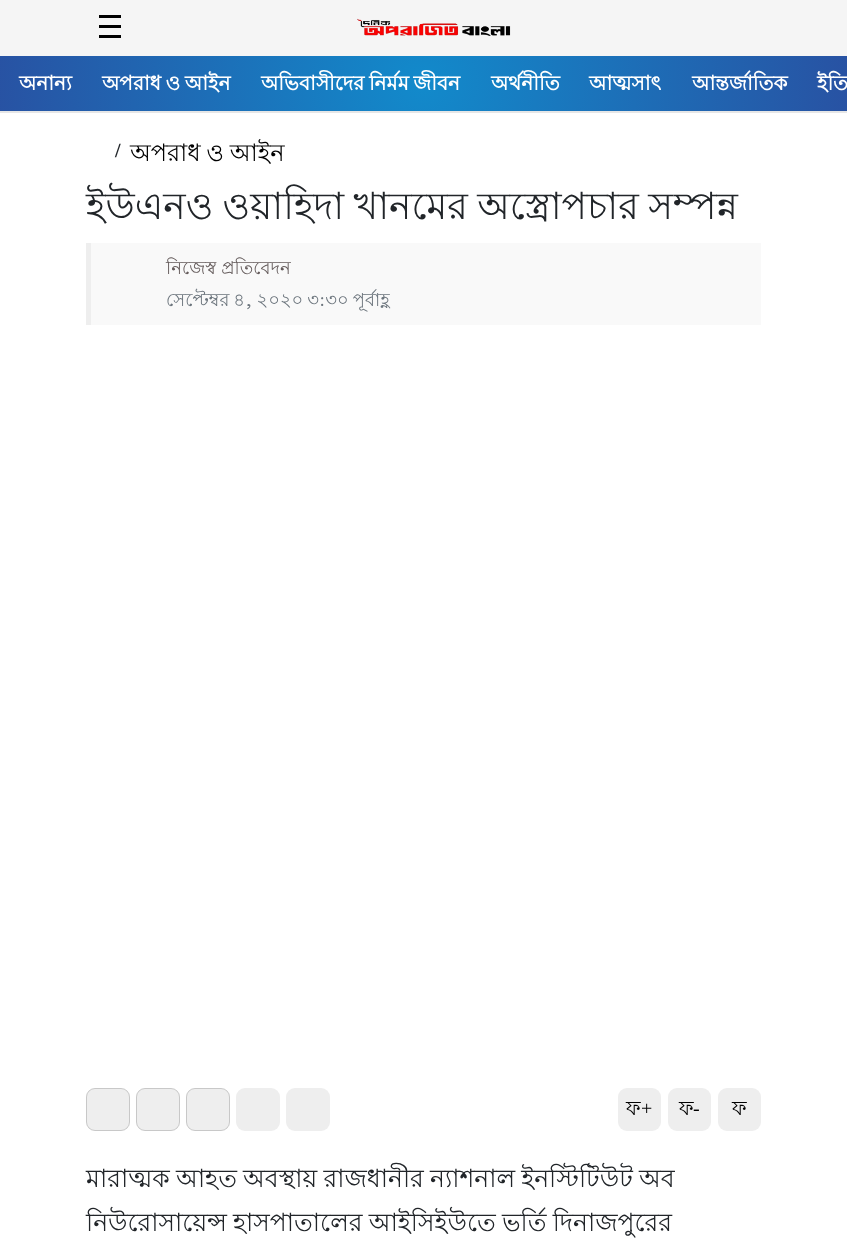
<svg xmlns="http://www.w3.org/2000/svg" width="847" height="1254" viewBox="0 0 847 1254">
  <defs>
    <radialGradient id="g1" gradientUnits="userSpaceOnUse" cx="422" cy="83" r="618"><stop offset="0" stop-color="#128acb"/><stop offset="1" stop-color="#323991"/></radialGradient>
  </defs>
  <rect width="100%" height="100%" fill="#fff"/>
  <path d="M0 0h847v56H0z" fill="#f5f5f5"/>
  <path d="M99 15h22v3H99z" fill="#000"/>
  <path d="M99 25h22v3H99z" fill="#000"/>
  <path d="M99 35h22v3H99z" fill="#000"/>
  <image x="357" y="18" width="154" height="18" href="img/1.png"/>
  <path d="M0 111V113H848V58V111Z" fill="#e6e6e6"/>
  <path d="M0 56h847v55H0z" fill="url(#g1)"/>
  <path d="M91 243h670v82H91z" fill="#f9f9f9"/>
  <path d="M86 243h5v82H86z" fill="#eee"/>
  <rect x="86" y="1088" width="44" height="43" rx="9" fill="#eee"/>
  <rect x="86.5" y="1088.5" width="43" height="42" rx="8.5" fill="none" stroke="#33333333"/>
  <rect x="136" y="1088" width="44" height="43" rx="9" fill="#eee"/>
  <rect x="136.5" y="1088.5" width="43" height="42" rx="8.5" fill="none" stroke="#33333333"/>
  <rect x="186" y="1088" width="44" height="43" rx="9" fill="#eee"/>
  <rect x="186.5" y="1088.5" width="43" height="42" rx="8.5" fill="none" stroke="#33333333"/>
  <rect x="236" y="1088" width="44" height="43" rx="9" fill="#eee"/>
  <rect x="286" y="1088" width="44" height="43" rx="9" fill="#eee"/>
  <rect x="618" y="1088" width="43" height="43" rx="9" fill="#eee"/>
  <rect x="668" y="1088" width="43" height="43" rx="9" fill="#eee"/>
  <rect x="718" y="1088" width="43" height="43" rx="9" fill="#eee"/>
  <g font-family="Lohit Bengali" font-size="20" font-weight="bold" fill="#fff">
    <text x="19" y="90">অনান্য</text>
    <text x="102" y="90" word-spacing="-1">অপরাধ ও আইন</text>
    <text x="261" y="90" word-spacing="-1">অভিবাসীদের নির্মম জীবন</text>
    <text x="491" y="90">অর্থনীতি</text>
    <text x="589" y="90">আত্মসাৎ</text>
    <text x="692" y="90">আন্তর্জাতিক</text>
    <text x="817" y="90">ইতি</text>
  </g>
  <text x="115" y="157" font-family="Liberation Serif" font-size="20" font-weight="bold" fill="#212529">/</text>
  <text x="130" y="161" word-spacing="-1" font-family="Lohit Bengali" font-size="24" fill="#000">অপরাধ ও আইন</text>
  <text x="86" y="219" word-spacing="-1" font-family="Lohit Bengali" font-size="37.5" fill="#212529">ইউএনও ওয়াহিদা খানমের অস্ত্রোপচার সম্পন্ন</text>
  <text x="166" y="274" font-family="Lohit Bengali" font-size="18" fill="#645b5b">নি‌জেস্ব প্র‌তি‌বেদন</text>
  <text x="166" y="306" word-spacing="-1" font-family="Lohit Bengali" font-size="18" fill="#6c757d">সেপ্টেম্বর ৪, ২০২০ ৩:৩০ পূর্বাহ্ণ</text>
  <text x="626" y="1115" font-family="Lohit Bengali" font-size="20" fill="#000">ফ</text>
  <text x="641" y="1115" font-family="Liberation Serif" font-size="20" fill="#000">+</text>
  <text x="679" y="1115" font-family="Lohit Bengali" font-size="20" fill="#000">ফ</text>
  <text x="693" y="1115" font-family="Liberation Serif" font-size="20" fill="#000">-</text>
  <text x="732" y="1115" font-family="Lohit Bengali" font-size="20" fill="#000">ফ</text>
  <g font-family="Lohit Bengali" font-size="25" fill="#212529">
    <text x="86" y="1187" word-spacing="-0.75">মারাত্মক আহত অবস্থায় রাজধানীর ন্যাশনাল ইনস্টিটিউট অব</text>
    <text x="86" y="1231" word-spacing="-0.75">নিউরোসায়েন্স হাসপাতালের আইসিইউতে ভর্তি দিনাজপুরের</text>
  </g>
</svg>
